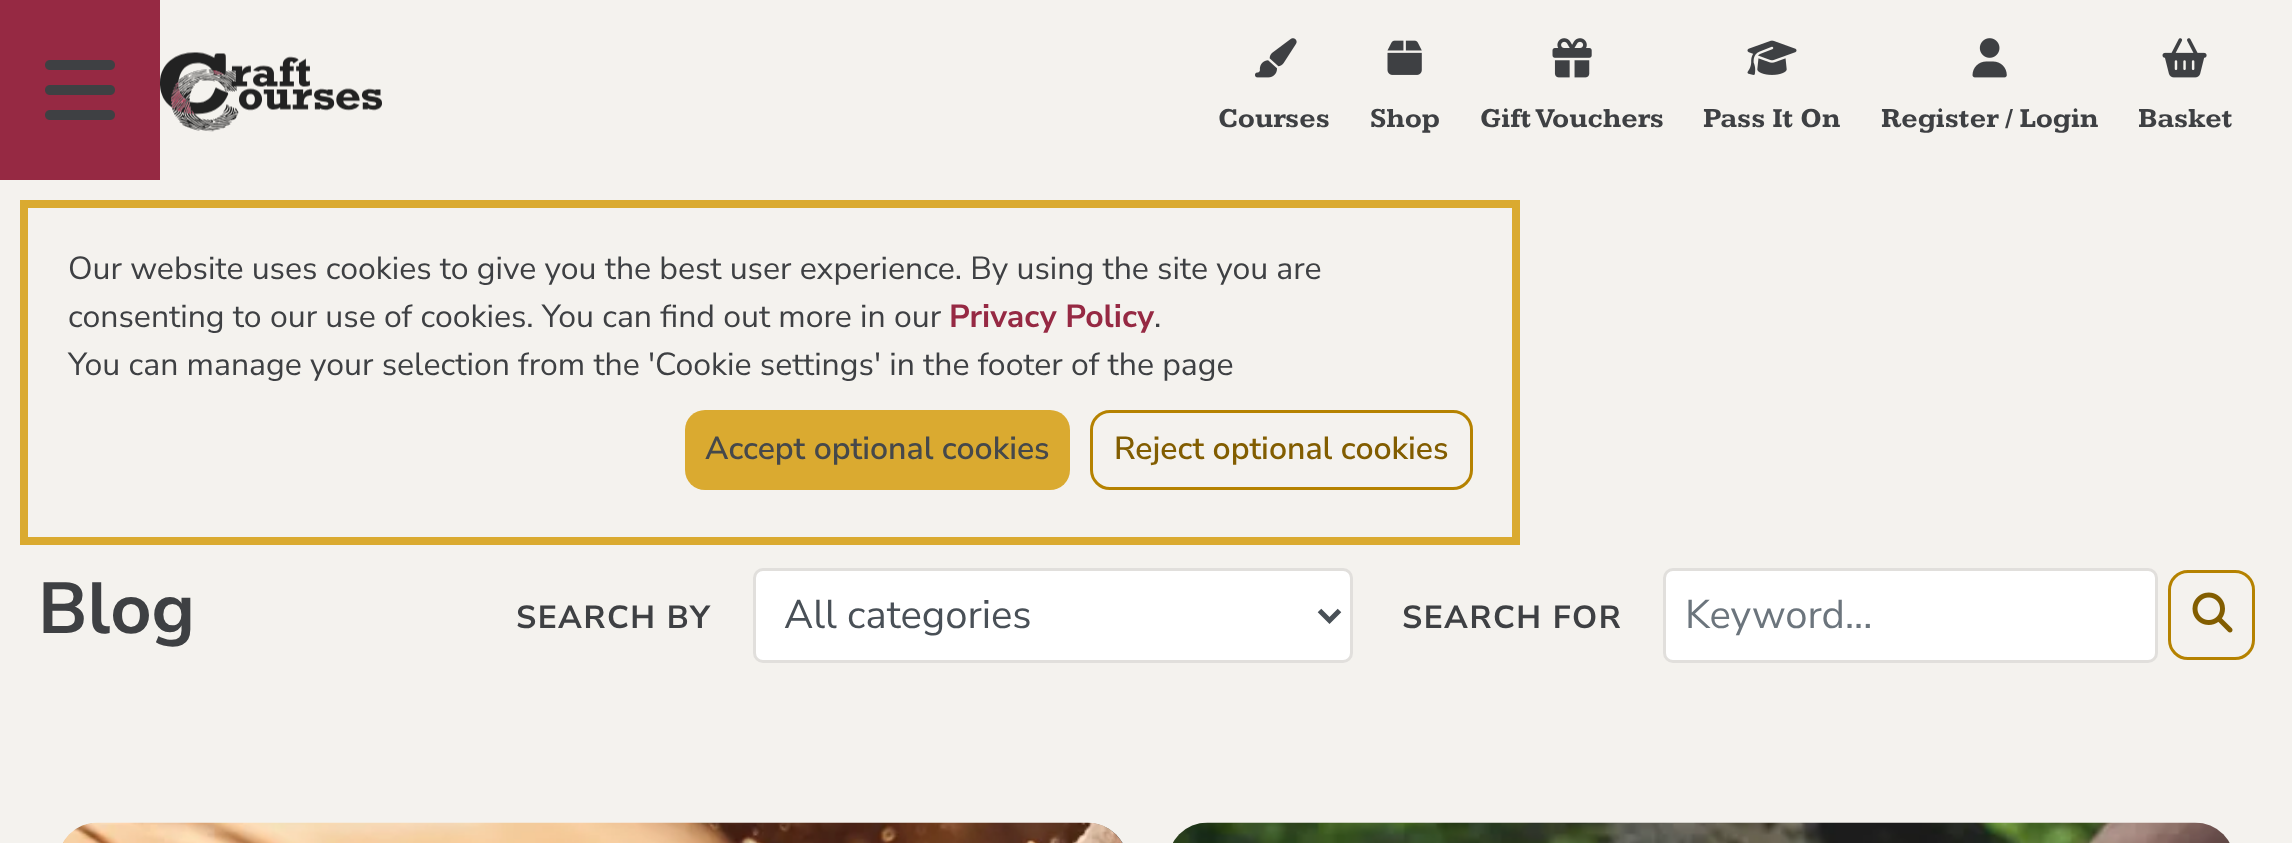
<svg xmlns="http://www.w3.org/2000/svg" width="2292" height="843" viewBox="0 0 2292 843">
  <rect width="100%" height="100%" fill="#fff"/>
  <path d="M19 -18h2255v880H19z" fill="none" stroke="#f4f2ee" stroke-width="38"/>
  <path d="M38 1h2217v842H38z" fill="#f4f2ee"/>
  <path d="M0 0h160v180H0z" fill="#962943"/>
  <image x="45" y="60" width="70" height="60" href="img/1.png"/>
  <image x="160" y="52" width="222" height="80" href="img/2.png"/>
  <image x="1255" y="38" width="42" height="40" href="img/3.png"/>
  <image x="1387" y="40" width="35" height="35" href="img/4.png"/>
  <image x="1552" y="38" width="40" height="40" href="img/5.png"/>
  <image x="1747" y="40" width="50" height="35" href="img/6.png"/>
  <image x="1972" y="38" width="35" height="40" href="img/7.png"/>
  <image x="2162" y="38" width="45" height="40" href="img/8.png"/>
  <path d="M24 204h1492v337H24z" fill="none" stroke="#daaa30" stroke-width="8"/>
  <rect x="685" y="410" width="385" height="80" rx="20" fill="#daaa30"/>
  <rect x="1091.5" y="411.5" width="380" height="77" rx="18.5" fill="none" stroke="#b58200" stroke-width="3"/>
  <rect x="754.5" y="569.5" width="597" height="92" rx="8.5" fill="#fff" stroke="#e1dfdc" stroke-width="3"/>
  <path d="M1319.5 610.5L1329.5 620.5L1339.5 610.5" fill="none" stroke="#495057" stroke-width="5"/>
  <rect x="1664.5" y="569.5" width="492" height="92" rx="8.5" fill="#fff" stroke="#e1dfdc" stroke-width="3"/>
  <rect x="2169.5" y="571.5" width="84" height="87" rx="18.5" fill="none" stroke="#b58200" stroke-width="3"/>
  <image x="2192" y="592" width="41" height="41" href="img/9.png"/>
  <path d="M98 823H1088C1110 823 1128 841 1128 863V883H58V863C58 841 76 823 98 823Z" fill="#3e4043"/>
  <image x="63" y="822" width="1059" height="21" href="img/10.png"/>
  <image x="1173" y="822" width="1057" height="21" href="img/11.png"/>
  <g font-family="Kameron" font-size="28" font-weight="bold" fill="#3e4043">
    <text x="1218" y="127">Courses</text>
    <text x="1370" y="127">Shop</text>
    <text x="1480" y="127">Gift Vouchers</text>
    <text x="1703" y="127">Pass It On</text>
    <text x="1881" y="127">Register / Login</text>
    <text x="2138" y="127">Basket</text>
  </g>
  <g font-family="'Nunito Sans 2'" font-size="32" font-weight="200" fill="#3e4043">
    <text x="68" y="279">Our website uses cookies to give you the best user experience. By using the site you are</text>
    <text x="68" y="327">consenting to our use of cookies. You can find out more in our</text>
  </g>
  <text x="949" y="327" font-family="Nunito Sans" font-size="32" font-weight="200" fill="#962943">Privacy Policy</text>
  <g font-family="'Nunito Sans 2'" font-size="32" font-weight="200" fill="#3e4043">
    <text x="1154" y="327">.</text>
    <text x="68" y="375">You can manage your selection from the 'Cookie settings' in the footer of the page</text>
  </g>
  <text x="705" y="459" font-family="'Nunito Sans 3'" font-size="32" font-weight="200" fill="#45484b">Accept optional cookies</text>
  <text x="1114" y="459" font-family="'Nunito Sans 3'" font-size="32" font-weight="200" fill="#825d00">Reject optional cookies</text>
  <text x="38" y="633" font-family="Nunito Sans" font-size="72" font-weight="200" fill="#3e4043">Blog</text>
  <text x="516" y="628" font-family="Nunito Sans" font-size="32" font-weight="200" letter-spacing="1.6" fill="#3e4043">SEARCH BY</text>
  <text x="784" y="628" font-family="'Nunito Sans 2'" font-size="40" font-weight="200" fill="#495057">All categories</text>
  <text x="1402" y="628" font-family="Nunito Sans" font-size="32" font-weight="200" letter-spacing="1.6" fill="#3e4043">SEARCH FOR</text>
  <text x="1685" y="628" font-family="'Nunito Sans 2'" font-size="40" font-weight="200" fill="#6c757d">Keyword...</text>
</svg>
